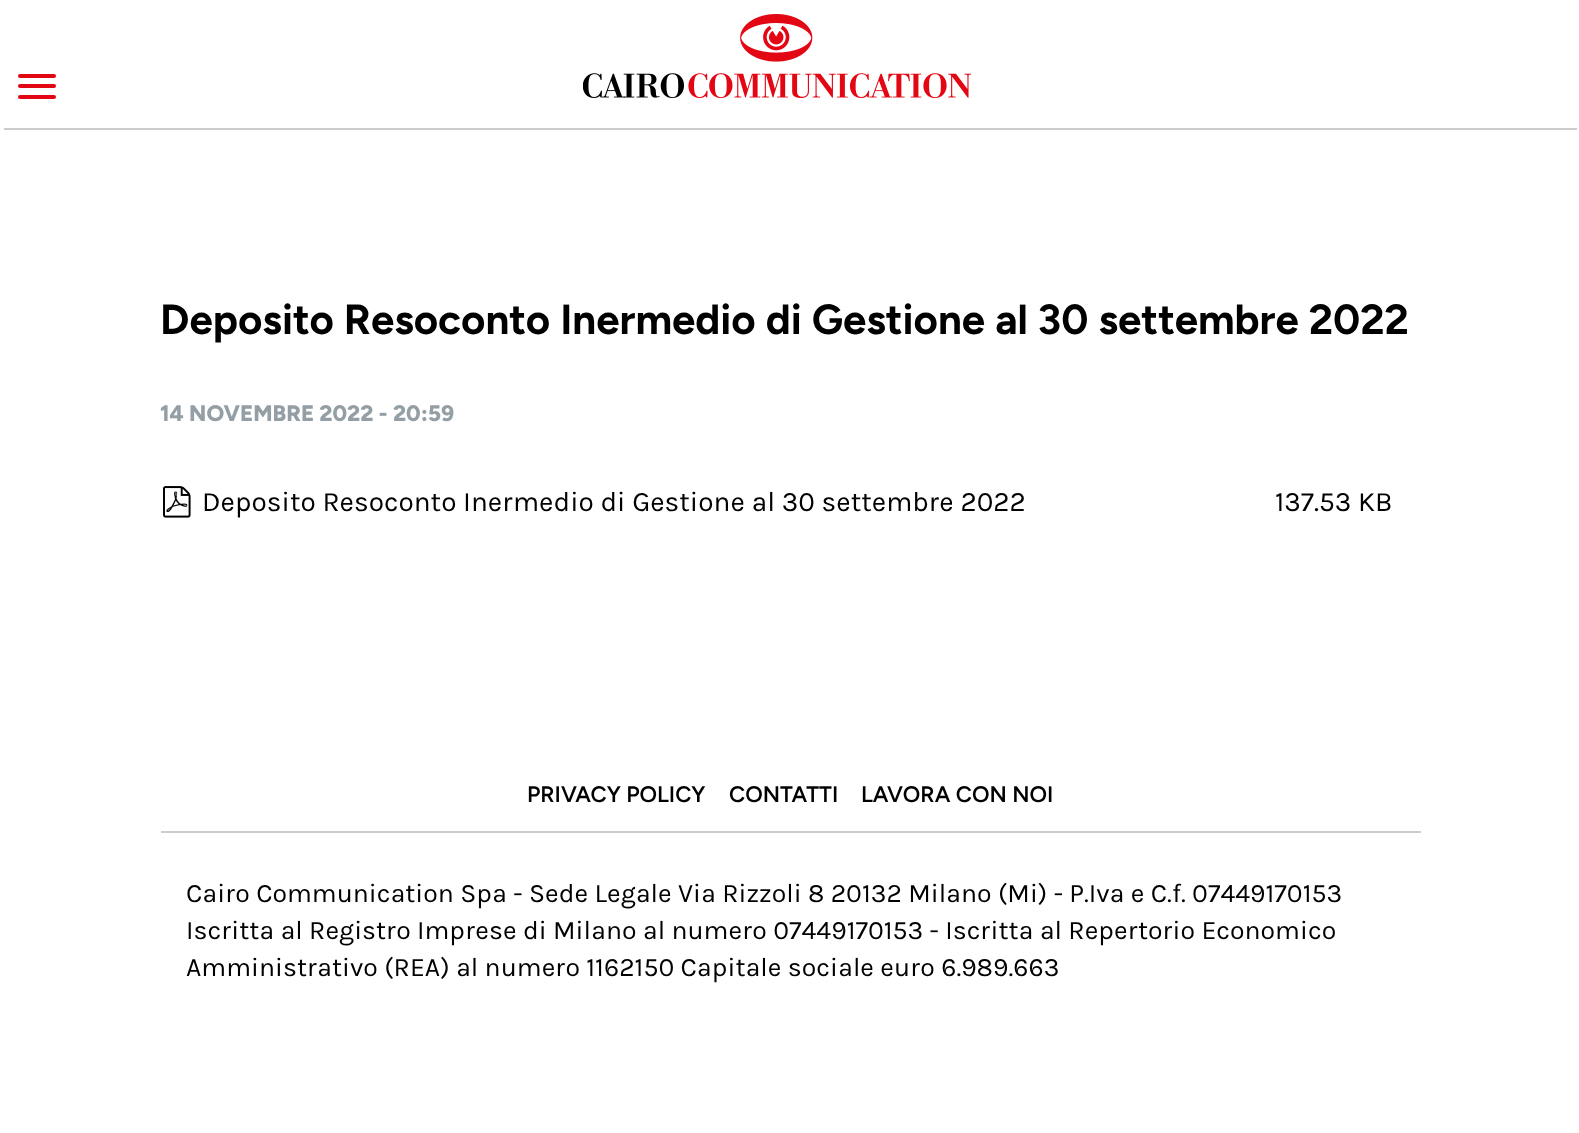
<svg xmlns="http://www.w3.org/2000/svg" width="1579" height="1133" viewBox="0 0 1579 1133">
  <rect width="100%" height="100%" fill="#fff"/>
  <path d="M4 128h1573v2H4z" fill="#ccc"/>
  <rect x="18" y="74" width="38" height="4" rx="2" fill="#e30613"/>
  <rect x="18" y="84" width="38" height="4" rx="2" fill="#e30613"/>
  <rect x="18" y="95" width="38" height="4" rx="2" fill="#e30613"/>
  <image x="583" y="14" width="388" height="84" href="img/1.png"/>
  <image x="163" y="486" width="28" height="32" href="img/2.png"/>
  <path d="M161 831h1260v2H161z" fill="#ccc"/>
  <text x="160" y="334" font-family="Figtree" font-size="42" font-weight="bold" fill="#000">Deposito Resoconto Inermedio di Gestione al 30 settembre 2022</text>
  <text x="160" y="421" font-family="Figtree" font-size="22.4" font-weight="800" fill="#949fa5">14 NOVEMBRE 2022 - 20:59</text>
  <g font-family="Karla" font-size="28" fill="#000">
    <text x="202" y="511">Deposito Resoconto Inermedio di Gestione al 30 settembre 2022</text>
    <text x="1275" y="511">137.53 KB</text>
  </g>
  <g font-family="Figtree" font-size="22.4" font-weight="600" fill="#000">
    <text x="527" y="802">PRIVACY POLICY</text>
    <text x="729" y="802">CONTATTI</text>
    <text x="861" y="802">LAVORA CON NOI</text>
  </g>
  <g font-family="Karla" font-size="26.6" fill="#000">
    <text x="186" y="902">Cairo Communication Spa - Sede Legale Via Rizzoli 8 20132 Milano (Mi) - P.Iva e C.f. 07449170153</text>
    <text x="186" y="939">Iscritta al Registro Imprese di Milano al numero 07449170153 - Iscritta al Repertorio Economico</text>
    <text x="186" y="976">Amministrativo (REA) al numero 1162150 Capitale sociale euro 6.989.663</text>
  </g>
</svg>
